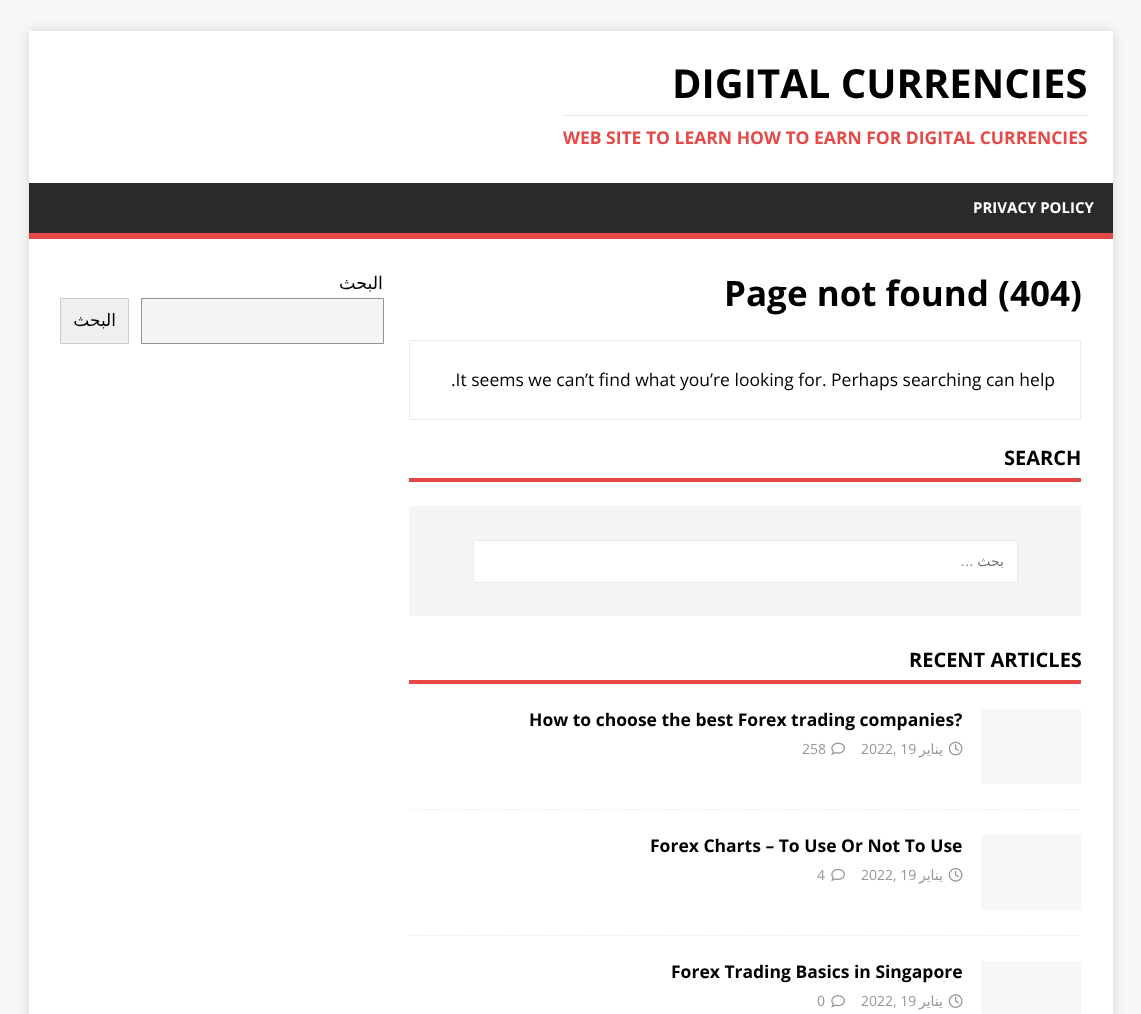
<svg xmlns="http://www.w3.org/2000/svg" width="1141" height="1014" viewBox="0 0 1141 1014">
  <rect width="100%" height="100%" fill="#f7f7f7"/>
  <path d="M29 31h1084v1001H29z" fill="#3232322b" filter="blur(6px)"/>
  <path d="M29 31h1084v152H29z" fill="#fff"/>
  <path d="M563 115h525v1H563z" fill="#e5e5e5"/>
  <path d="M29 183h1084v50H29z" fill="#2a2a2a"/>
  <path d="M29 233h1084v6H29z" fill="#e64946"/>
  <path d="M29 239h1084v775H29z" fill="#fff"/>
  <path d="M60.5 298.5h68v45H60.5z" fill="#efefef" stroke="#ccc"/>
  <path d="M141.5 298.5h242v45H141.5z" fill="#f5f5f5" stroke="#949494"/>
  <path d="M409.5 340.5h671v79H409.5z" fill="none" stroke="#ebebeb"/>
  <path d="M409 478h672v4H409z" fill="#e64946"/>
  <path d="M409 506h672v110H409z" fill="#f5f5f5"/>
  <path d="M473.5 540.5h544v42H473.5z" fill="#fff" stroke="#ebebeb"/>
  <path d="M409 680h672v4H409z" fill="#e64946"/>
  <path d="M409 809.5H1081" fill="none" stroke="#ebebeb" stroke-width="1.2" stroke-dasharray="1.25 1.25"/>
  <image x="831" y="742" width="14" height="13" href="img/1.png"/>
  <image x="948" y="741" width="15" height="15" href="img/2.png"/>
  <path d="M981 709h100v75H981z" fill="#f7f7f7"/>
  <path d="M409 935.5H1081" fill="none" stroke="#ebebeb" stroke-width="1.2" stroke-dasharray="1.25 1.25"/>
  <image x="831" y="868" width="14" height="13" href="img/3.png"/>
  <image x="948" y="868" width="15" height="14" href="img/4.png"/>
  <path d="M981 835h100v75H981z" fill="#f7f7f7"/>
  <image x="831" y="995" width="14" height="13" href="img/5.png"/>
  <image x="948" y="994" width="15" height="14" href="img/6.png"/>
  <path d="M981 961h100v53H981z" fill="#f7f7f7"/>
  <text x="672" y="98" font-family="Open Sans" font-size="40" font-weight="bold" fill="#000">DIGITAL CURRENCIES</text>
  <text x="563" y="144" font-family="Open Sans" font-size="17.5" font-weight="bold" fill="#e64946">WEB SITE TO LEARN HOW TO EARN FOR DIGITAL CURRENCIES</text>
  <text x="973" y="213" font-family="Open Sans" font-size="15" font-weight="bold" fill="#fff">PRIVACY POLICY</text>
  <text x="383" y="289" font-family="DejaVu Sans" font-size="17.5" direction="rtl" fill="#000">البحث</text>
  <text x="116" y="326" font-family="DejaVu Sans" font-size="17" direction="rtl" fill="#000">البحث</text>
  <text x="724" y="306" font-family="Open Sans" font-size="35" font-weight="bold" fill="#000">Page not found (404)</text>
  <text x="451" y="386" font-family="Open Sans" font-size="17.5" fill="#000">.It seems we can’t find what you’re looking for. Perhaps searching can help</text>
  <text x="1004" y="465" font-family="Open Sans" font-size="20" font-weight="bold" fill="#000">SEARCH</text>
  <text x="974" y="566" font-family="Liberation Sans" font-size="14" direction="rtl" fill="#757575">…</text>
  <text x="1004" y="566" font-family="DejaVu Sans" font-size="14" direction="rtl" fill="#757575">بحث</text>
  <text x="909" y="667" font-family="Open Sans" font-size="20" font-weight="bold" fill="#000">RECENT ARTICLES</text>
  <text x="529" y="726" font-family="Open Sans" font-size="17.5" font-weight="bold" fill="#000">How to choose the best Forex trading companies?</text>
  <g font-family="Open Sans" font-size="14" fill="#979797">
    <text x="802" y="754">258</text>
    <text x="861" y="754">2022, 19</text>
  </g>
  <text x="943" y="754" font-family="DejaVu Sans" font-size="14" direction="rtl" fill="#979797">يناير</text>
  <text x="650" y="852" font-family="Open Sans" font-size="17.5" font-weight="bold" fill="#000">Forex Charts – To Use Or Not To Use</text>
  <g font-family="Open Sans" font-size="14" fill="#979797">
    <text x="817" y="880">4</text>
    <text x="861" y="880">2022, 19</text>
  </g>
  <text x="943" y="880" font-family="DejaVu Sans" font-size="14" direction="rtl" fill="#979797">يناير</text>
  <text x="671" y="978" font-family="Open Sans" font-size="17.5" font-weight="bold" fill="#000">Forex Trading Basics in Singapore</text>
  <g font-family="Open Sans" font-size="14" fill="#979797">
    <text x="817" y="1006">0</text>
    <text x="861" y="1006">2022, 19</text>
  </g>
  <text x="943" y="1006" font-family="DejaVu Sans" font-size="14" direction="rtl" fill="#979797">يناير</text>
</svg>
